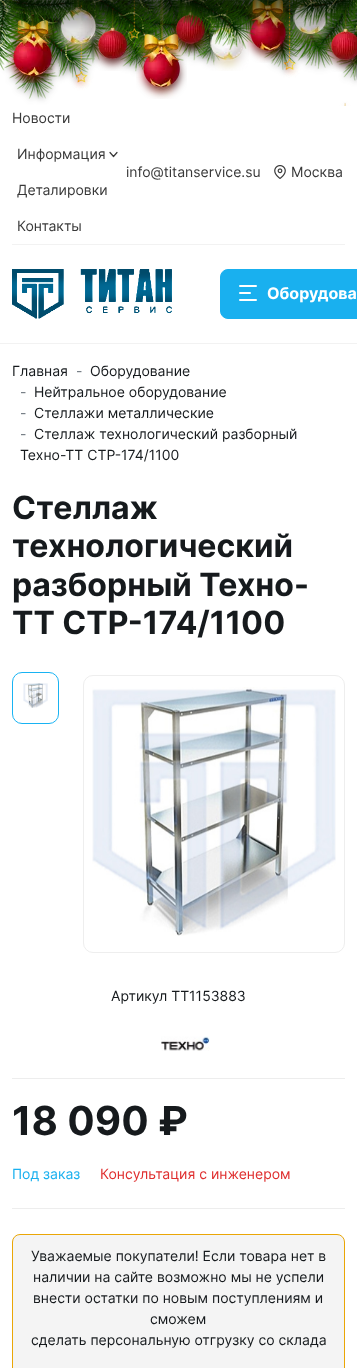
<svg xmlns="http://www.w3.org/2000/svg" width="357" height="1368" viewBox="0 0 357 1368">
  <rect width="100%" height="100%" fill="#fff"/>
  <image x="0" y="0" width="357" height="106" href="img/1.png"/>
  <image x="6" y="5" width="53" height="78" href="img/10.png"/>
  <image x="0" y="0" width="25" height="71" href="img/2.png"/>
  <image x="54" y="0" width="48" height="51" href="img/4.png"/>
  <image x="25" y="0" width="61" height="27" href="img/3.png"/>
  <image x="136" y="0" width="51" height="99" href="img/5.png"/>
  <image x="169" y="2" width="42" height="54" href="img/12.png"/>
  <image x="204" y="6" width="45" height="65" href="img/13.png"/>
  <image x="177" y="0" width="28" height="31" href="img/6.png"/>
  <image x="243" y="0" width="49" height="63" href="img/8.png"/>
  <image x="205" y="0" width="50" height="50" href="img/7.png"/>
  <image x="287" y="0" width="46" height="45" href="img/9.png"/>
  <image x="92" y="9" width="41" height="62" href="img/11.png"/>
  <image x="325" y="10" width="32" height="62" href="img/15.png"/>
  <image x="289" y="0" width="68" height="28" href="img/14.png"/>
  <path d="M0 -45h357v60H0z" fill="#000000bf" filter="blur(15px)"/>
  <path d="M0 343h357v1H0z" fill="#f2f2f2"/>
  <path d="M12 244h333v1H12z" fill="#f2f2f2"/>
  <path d="M110 152.5L113.5 156.5L117 152.5" fill="none" stroke="#393939" stroke-width="1.2" stroke-linecap="round" stroke-linejoin="round"/>
  <image x="274" y="165" width="12" height="14" href="img/16.png"/>
  <image x="12" y="269" width="160" height="50" href="img/17.png"/>
  <rect x="220.5" y="269.5" width="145" height="49" rx="7.5" fill="#19b0ef" stroke="#19b0ef"/>
  <rect x="239" y="285" width="18" height="2" rx="1" fill="#fff"/>
  <rect x="239" y="292" width="12" height="2" rx="1" fill="#fff"/>
  <rect x="239" y="299" width="18" height="2" rx="1" fill="#fff"/>
  <rect x="12.5" y="672.5" width="46" height="51" rx="9.5" fill="none" stroke="#18b3f3"/>
  <image x="23" y="683" width="25" height="25" href="img/18.png"/>
  <rect x="83.5" y="675.5" width="261" height="277" rx="9.5" fill="none" stroke="#eee"/>
  <image x="92" y="687" width="244" height="249" href="img/19.png"/>
  <path d="M12 1078h333v1H12z" fill="#ededed"/>
  <image x="161" y="1036" width="49" height="15" href="img/20.png"/>
  <path d="M12 1208h333v1H12z" fill="#ededed"/>
  <rect x="12.5" y="1234.5" width="332" height="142" rx="7.5" fill="#f4f4f4" stroke="#eaa606"/>
  <g font-family="Inter" font-size="14" fill="#393939">
    <text x="12" y="123">Новости</text>
    <text x="17" y="159">Информация</text>
    <text x="17" y="195">Деталировки</text>
    <text x="17" y="231">Контакты</text>
    <text x="126" y="177">info@titanservice.su</text>
    <text x="291" y="177">Москва</text>
  </g>
  <text x="267" y="299" font-family="Inter" font-size="16" font-weight="bold" fill="#fff">Оборудова</text>
  <text x="12" y="376" font-family="Inter" font-size="14" fill="#161a1d">Главная</text>
  <text x="76" y="376" font-family="Inter" font-size="14" fill="#6c757d">-</text>
  <text x="90" y="376" font-family="Inter" font-size="14" fill="#161a1d">Оборудование</text>
  <text x="20" y="397" font-family="Inter" font-size="14" fill="#6c757d">-</text>
  <text x="34" y="397" font-family="Inter" font-size="14" fill="#161a1d">Нейтральное оборудование</text>
  <text x="20" y="418" font-family="Inter" font-size="14" fill="#6c757d">-</text>
  <text x="34" y="418" font-family="Inter" font-size="14" fill="#161a1d">Стеллажи металлические</text>
  <text x="20" y="439" font-family="Inter" font-size="14" fill="#6c757d">-</text>
  <g font-family="Inter" font-size="14" fill="#161a1d">
    <text x="34" y="439">Стеллаж технологический разборный</text>
    <text x="20" y="460">Техно-ТТ СТР-174/1100</text>
  </g>
  <g font-family="Inter" font-size="32" font-weight="bold" fill="#161a1d">
    <text x="12" y="519">Стеллаж</text>
    <text x="12" y="557">технологический</text>
    <text x="12" y="596">разборный Техно-</text>
    <text x="12" y="634">ТТ СТР-174/1100</text>
  </g>
  <text x="111" y="1001" font-family="Inter" font-size="14" fill="#161a1d">Артикул ТТ1153883</text>
  <text x="12" y="1135" font-family="Inter" font-size="40" font-weight="bold" fill="#161a1d">18 090 ₽</text>
  <text x="12" y="1179" font-family="Inter" font-size="14" fill="#19b0ef">Под заказ</text>
  <text x="100" y="1179" font-family="Inter" font-size="14" fill="#df2e2e">Консультация с инженером</text>
  <g font-family="Inter" font-size="14" fill="#161a1d">
    <text x="31" y="1261">Уважаемые покупатели! Если товара нет в</text>
    <text x="33" y="1282">наличии на сайте возможно мы не успели</text>
    <text x="33" y="1303">внести остатки по новым поступлениям и</text>
    <text x="150" y="1324">сможем</text>
    <text x="31" y="1345">сделать персональную отгрузку со склада</text>
  </g>
</svg>
